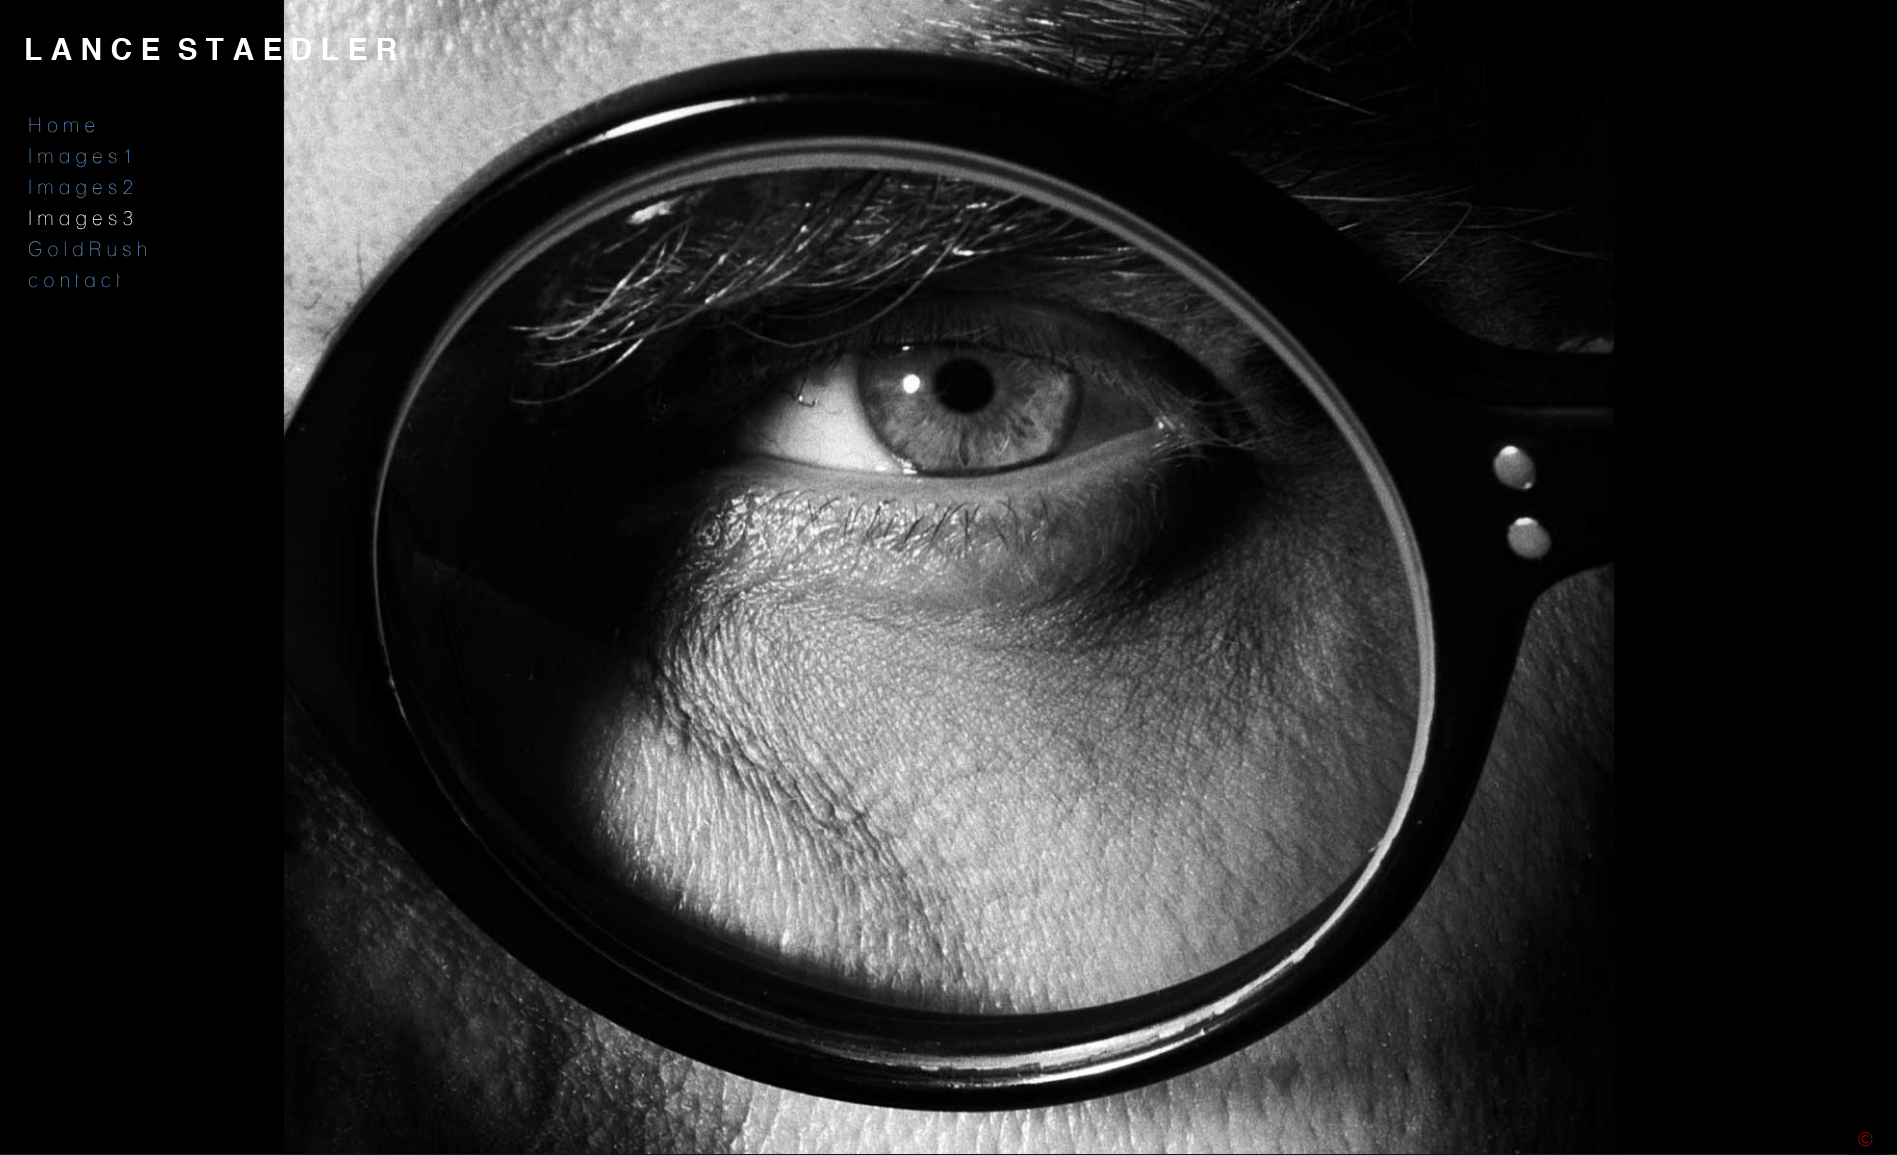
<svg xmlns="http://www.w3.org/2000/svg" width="1897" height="1155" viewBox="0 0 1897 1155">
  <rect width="100%" height="100%" fill="#000"/>
  <image x="280" y="0" width="1337" height="1154" href="img/1.png"/>
  <path d="M0 1154h1897v1H0z" fill="#161516"/>
  <image x="26" y="38" width="370" height="22" href="img/2.png"/>
  <path d="M1849 1154h33v1H1849z" fill="#000"/>
  <g font-family="'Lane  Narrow'" font-size="20" fill="#69c">
    <text x="28" y="132">H o m e</text>
    <text x="28" y="163">I m a g e s 1</text>
    <text x="28" y="194">I m a g e s 2</text>
  </g>
  <text x="28" y="225" font-family="'Lane  Narrow'" font-size="20" fill="#fff">I m a g e s 3</text>
  <g font-family="'Lane  Narrow'" font-size="20" fill="#69c">
    <text x="28" y="256">G o l d R u s h</text>
    <text x="28" y="287">c o n t a c t</text>
  </g>
  <text x="1858" y="1146" font-family="Liberation Sans" font-size="20" fill="#900">©</text>
</svg>
